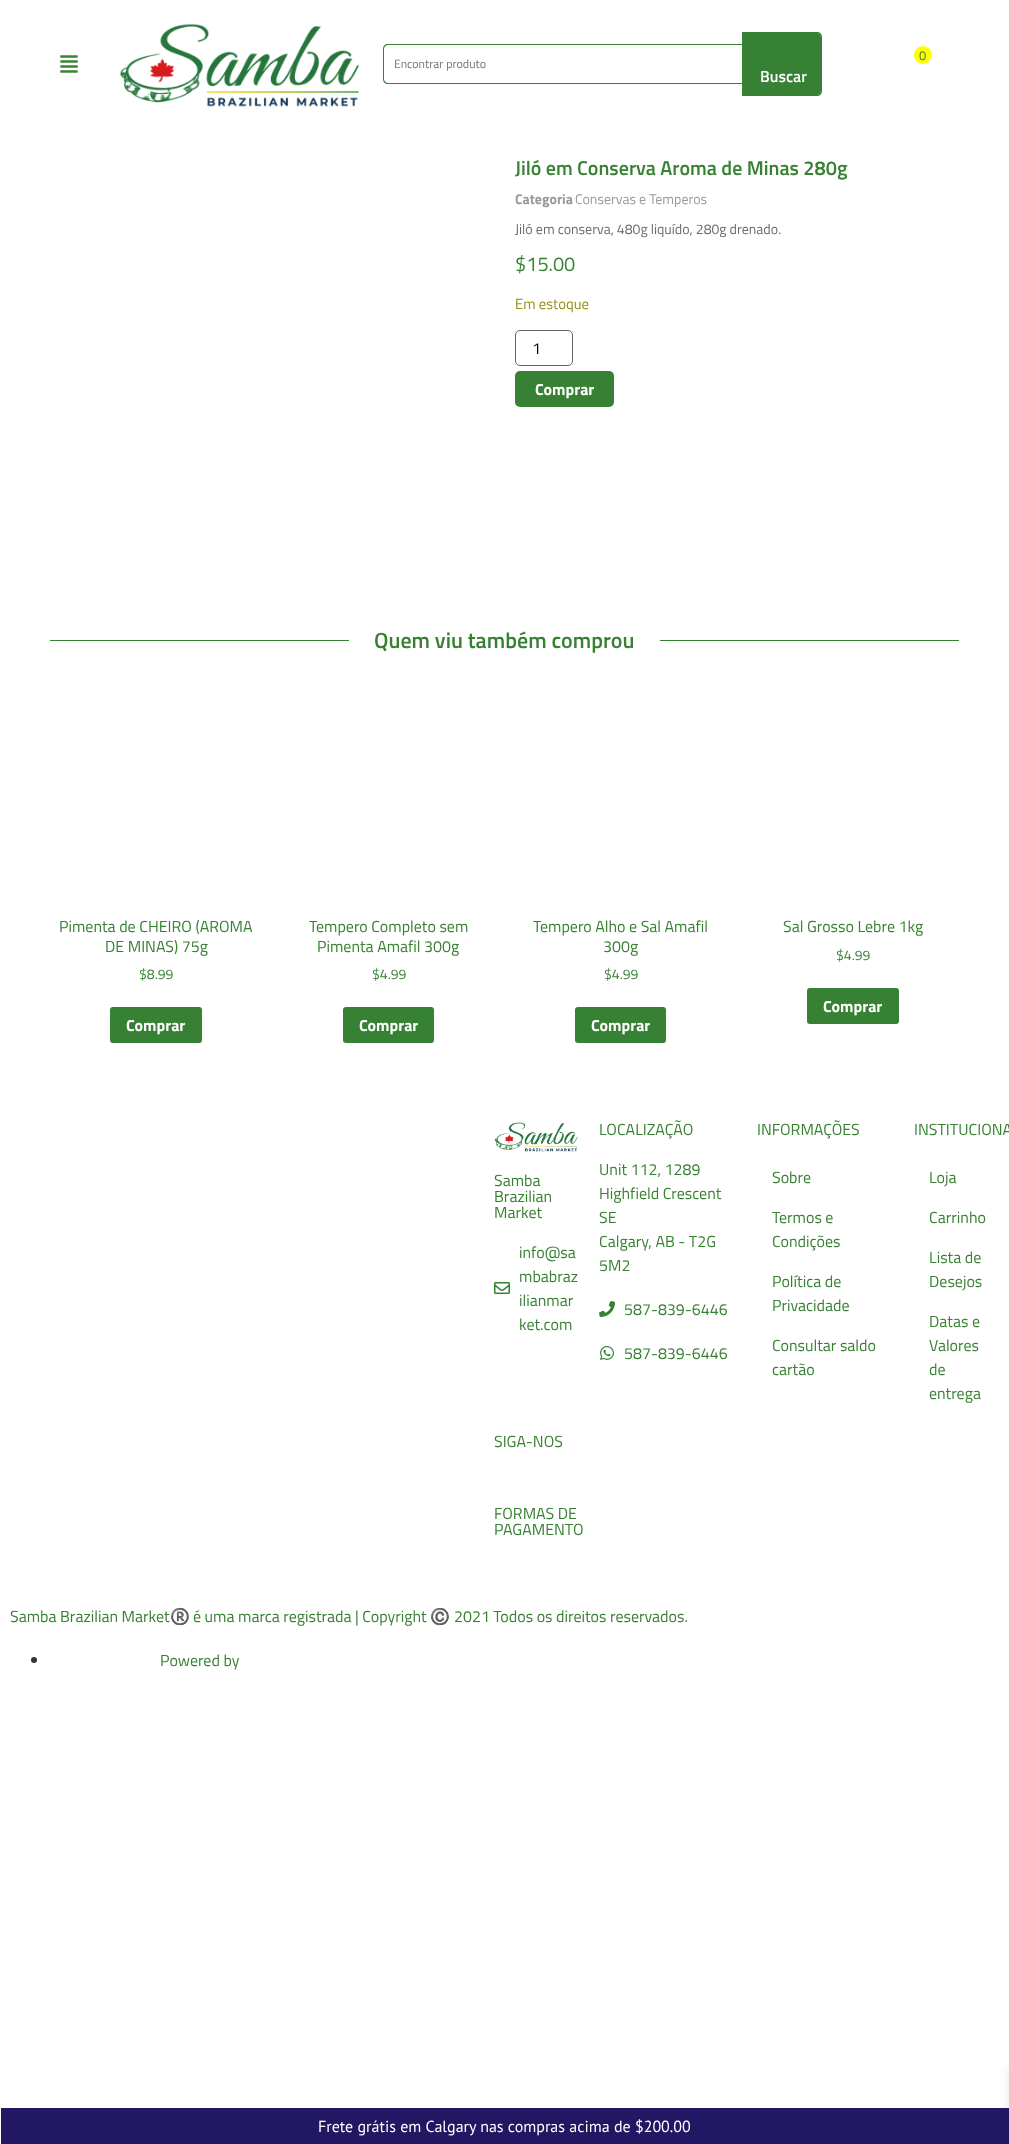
<svg xmlns="http://www.w3.org/2000/svg" width="1009" height="2144" viewBox="0 0 1009 2144">
  <rect width="100%" height="100%" fill="#fff"/>
  <image x="60" y="55" width="18" height="18" href="img/1.png"/>
  <image x="119" y="23" width="240" height="84" href="img/2.png"/>
  <path d="M388 44H744V84H388C385 84 383 82 383 79V49C383 46 385 44 388 44ZM388 45H744V83H388C386 83 384 81 384 79V49C384 47 386 45 388 45Z" fill="#378134" fill-rule="evenodd"/>
  <path d="M742 33H817C819 33 821 35 821 37V91C821 93 819 95 817 95H742Z" fill="#378134"/>
  <path d="M742 32H817C820 32 822 34 822 37V91C822 94 820 96 817 96H742ZM742 33H817C819 33 821 35 821 37V91C821 93 819 95 817 95H742Z" fill="#378134" fill-rule="evenodd"/>
  <circle cx="923" cy="55" r="9" fill="#ff0"/>
  <rect x="515.5" y="330.5" width="57" height="35" rx="4.5" fill="none" stroke="#666"/>
  <rect x="515" y="371" width="99" height="36" rx="5" fill="#378134"/>
  <path d="M50 640h299v1H50z" fill="#378134"/>
  <path d="M660 640h299v1H660z" fill="#378134"/>
  <rect x="110" y="1007" width="92" height="36" rx="3" fill="#378134"/>
  <rect x="343" y="1007" width="91" height="36" rx="3" fill="#378134"/>
  <rect x="575" y="1007" width="91" height="36" rx="3" fill="#378134"/>
  <rect x="807" y="988" width="92" height="36" rx="3" fill="#378134"/>
  <image x="494" y="1122" width="84" height="30" href="img/3.png"/>
  <image x="494" y="1282" width="16" height="12" href="img/4.png"/>
  <image x="599" y="1301" width="16" height="16" href="img/5.png"/>
  <image x="600" y="1346" width="14" height="14" href="img/6.png"/>
  <circle cx="34" cy="1660" r="3" fill="#333"/>
  <path d="M1009 2068h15v71H1009z" fill="#0000001a" filter="blur(5px)"/>
  <path d="M1 2108h1008v36H1z" fill="#221762"/>
  <text x="394" y="68" font-family="Titillium Web" font-size="12" fill="#757575">Encontrar produto</text>
  <text x="760" y="82" font-family="Titillium Web" font-size="16" font-weight="600" fill="#fff">Buscar</text>
  <text x="919" y="60" font-family="Titillium Web" font-size="13" fill="#388133">0</text>
  <text x="515" y="175" font-family="Titillium Web" font-size="20" font-weight="600" fill="#388133">Jiló em Conserva Aroma de Minas 280g</text>
  <text x="515" y="204" font-family="Titillium Web" font-size="14" font-weight="bold" fill="#999">Categoria</text>
  <text x="575" y="204" font-family="Titillium Web" font-size="14" fill="#999">Conservas e Temperos</text>
  <text x="515" y="234" font-family="Titillium Web" font-size="14" fill="#6b6b6b">Jiló em conserva, 480g liquído, 280g drenado.</text>
  <text x="515" y="271" font-family="Titillium Web" font-size="20" fill="#388133">$15.00</text>
  <text x="515" y="309" font-family="Titillium Web" font-size="14.75" fill="#958e09">Em estoque</text>
  <text x="532" y="354" font-family="Titillium Web" font-size="16" fill="#000">1</text>
  <text x="535" y="395" font-family="Titillium Web" font-size="16" font-weight="bold" fill="#fff">Comprar</text>
  <text x="374" y="648" font-family="Titillium Web" font-size="22" font-weight="600" fill="#388133">Quem viu também comprou</text>
  <g font-family="Titillium Web" font-size="16" fill="#388133">
    <text x="59" y="932">Pimenta de CHEIRO (AROMA</text>
    <text x="105" y="952">DE MINAS) 75g</text>
  </g>
  <text x="139" y="979" font-family="Titillium Web" font-size="14" fill="#388133">$8.99</text>
  <text x="126" y="1031" font-family="Titillium Web" font-size="16" font-weight="bold" fill="#fff">Comprar</text>
  <g font-family="Titillium Web" font-size="16" fill="#388133">
    <text x="309" y="932">Tempero Completo sem</text>
    <text x="317" y="952">Pimenta Amafil 300g</text>
  </g>
  <text x="372" y="979" font-family="Titillium Web" font-size="14" fill="#388133">$4.99</text>
  <text x="359" y="1031" font-family="Titillium Web" font-size="16" font-weight="bold" fill="#fff">Comprar</text>
  <g font-family="Titillium Web" font-size="16" fill="#388133">
    <text x="533" y="932">Tempero Alho e Sal Amafil</text>
    <text x="603" y="952">300g</text>
  </g>
  <text x="604" y="979" font-family="Titillium Web" font-size="14" fill="#388133">$4.99</text>
  <text x="591" y="1031" font-family="Titillium Web" font-size="16" font-weight="bold" fill="#fff">Comprar</text>
  <text x="783" y="932" font-family="Titillium Web" font-size="16" fill="#388133">Sal Grosso Lebre 1kg</text>
  <text x="836" y="960" font-family="Titillium Web" font-size="14" fill="#388133">$4.99</text>
  <text x="823" y="1012" font-family="Titillium Web" font-size="16" font-weight="bold" fill="#fff">Comprar</text>
  <g font-family="Titillium Web" font-size="16" fill="#388133">
    <text x="494" y="1186">Samba</text>
    <text x="494" y="1202">Brazilian</text>
    <text x="494" y="1218">Market</text>
    <text x="519" y="1258">info@sa</text>
    <text x="519" y="1282">mbabraz</text>
    <text x="519" y="1306">ilianmar</text>
    <text x="519" y="1330">ket.com</text>
    <text x="599" y="1135">LOCALIZAÇÃO</text>
    <text x="599" y="1175">Unit 112, 1289</text>
    <text x="599" y="1199">Highfield Crescent</text>
    <text x="599" y="1223">SE</text>
    <text x="599" y="1247">Calgary, AB - T2G</text>
    <text x="599" y="1271">5M2</text>
    <text x="624" y="1315">587-839-6446</text>
    <text x="624" y="1359">587-839-6446</text>
    <text x="757" y="1135">INFORMAÇÕES</text>
    <text x="772" y="1183">Sobre</text>
    <text x="772" y="1223">Termos e</text>
    <text x="772" y="1247">Condições</text>
    <text x="772" y="1287">Política de</text>
    <text x="772" y="1311">Privacidade</text>
    <text x="772" y="1351">Consultar saldo</text>
    <text x="772" y="1375">cartão</text>
    <text x="914" y="1135">INSTITUCIONA</text>
    <text x="929" y="1183">Loja</text>
    <text x="929" y="1223">Carrinho</text>
    <text x="929" y="1263">Lista de</text>
    <text x="929" y="1287">Desejos</text>
    <text x="929" y="1327">Datas e</text>
    <text x="929" y="1351">Valores</text>
    <text x="929" y="1375">de</text>
    <text x="929" y="1399">entrega</text>
    <text x="494" y="1447">SIGA-NOS</text>
    <text x="494" y="1519">FORMAS DE</text>
    <text x="494" y="1535">PAGAMENTO</text>
    <text x="10" y="1622">Samba Brazilian Market</text>
  </g>
  <text x="170" y="1622" font-family="Noto Color Emoji" font-size="16" fill="#388133">®️</text>
  <text x="193" y="1622" font-family="Titillium Web" font-size="16" fill="#388133">é uma marca registrada | Copyright</text>
  <text x="430" y="1622" font-family="Noto Color Emoji" font-size="16" fill="#388133">©️</text>
  <g font-family="Titillium Web" font-size="16" fill="#388133">
    <text x="454" y="1622">2021 Todos os direitos reservados.</text>
    <text x="160" y="1666">Powered by</text>
  </g>
  <text x="318" y="2132" font-family="PT Sans" font-size="16" fill="#fff">Frete grátis em Calgary nas compras acima de $200.00</text>
</svg>
